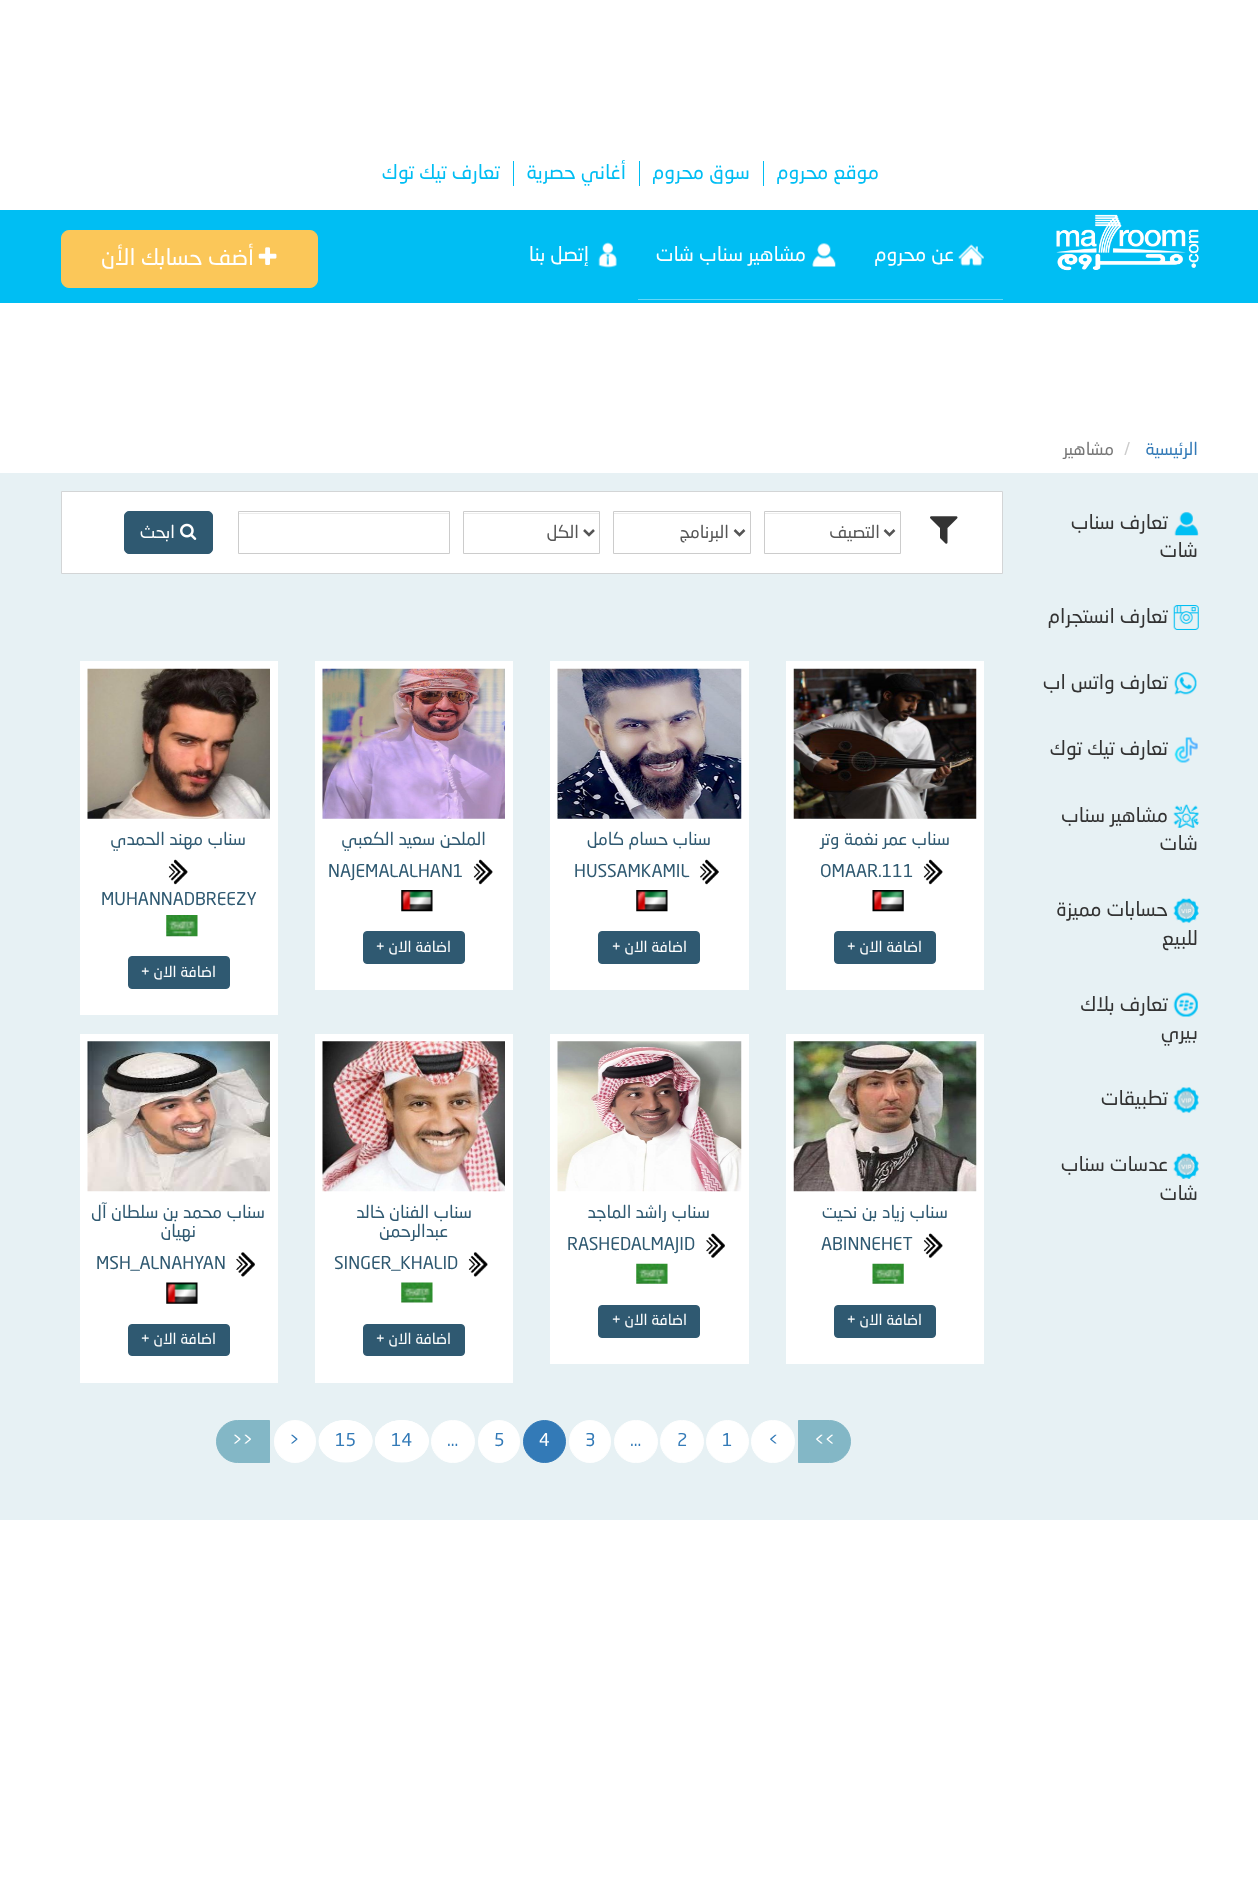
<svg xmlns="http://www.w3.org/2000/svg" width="1258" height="1901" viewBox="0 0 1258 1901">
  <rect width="100%" height="100%" fill="#fff"/>
  <path d="M763 161h1v25H763z" fill="#00bdf3"/>
  <path d="M639 161h1v25H639z" fill="#00bdf3"/>
  <path d="M513 161h1v25H513z" fill="#00bdf3"/>
  <path d="M0 210h1258v93H0z" fill="#00bef3"/>
  <image x="1056" y="214" width="143" height="57" href="img/1.png"/>
  <path d="M638 299h365v1H638z" fill="#66d8f8"/>
  <image x="958" y="244" width="26" height="22" href="img/2.png"/>
  <image x="812" y="243" width="24" height="24" href="img/3.png"/>
  <image x="598" y="242" width="19" height="26" href="img/4.png"/>
  <rect x="61.5" y="230.5" width="256" height="57" rx="7.5" fill="#fbc759" stroke="#fbc759"/>
  <image x="258" y="247" width="19" height="18" href="img/5.png"/>
  <path d="M0 473h1258v1047H0z" fill="#e7f1f4"/>
  <image x="1174" y="512" width="25" height="24" href="img/6.png"/>
  <image x="1173" y="605" width="26" height="25" href="img/7.png"/>
  <image x="1174" y="672" width="23" height="23" href="img/8.png"/>
  <image x="1174" y="737" width="24" height="26" href="img/9.png"/>
  <image x="1173" y="804" width="26" height="24" href="img/10.png"/>
  <image x="1173" y="898" width="26" height="25" href="img/11.png"/>
  <image x="1173" y="992" width="25" height="25" href="img/12.png"/>
  <image x="1173" y="1087" width="26" height="26" href="img/13.png"/>
  <image x="1173" y="1153" width="26" height="26" href="img/14.png"/>
  <path d="M61.5 491.5h941v82H61.5z" fill="#fff" stroke="#d3d5d6"/>
  <image x="930" y="516" width="28" height="28" href="img/15.png"/>
  <path d="M765 513h135v1H765z" fill="#ececec"/>
  <path d="M764.5 511.5h136v42H764.5z" fill="none" stroke="#ccc"/>
  <path d="M884.5 530L889.5 535L894.5 530" fill="none" stroke="#555" stroke-width="2.5"/>
  <path d="M614 513h136v1H614z" fill="#ececec"/>
  <path d="M613.5 511.5h137v42H613.5z" fill="none" stroke="#ccc"/>
  <path d="M734.5 530L739.5 535L744.5 530" fill="none" stroke="#555" stroke-width="2.5"/>
  <path d="M464 513h135v1H464z" fill="#ececec"/>
  <path d="M463.5 511.5h136v42H463.5z" fill="none" stroke="#ccc"/>
  <path d="M584 530L589 535L594 530" fill="none" stroke="#555" stroke-width="2.5"/>
  <path d="M239 513h210v1H239z" fill="#ececec"/>
  <path d="M238.5 511.5h211v42H238.5z" fill="none" stroke="#ccc"/>
  <rect x="124.5" y="511.5" width="88" height="42" rx="4.5" fill="#2f5971" stroke="#2f5971"/>
  <image x="180" y="523" width="17" height="17" href="img/16.png"/>
  <path d="M786 661h198v329H786z" fill="#fff"/>
  <image x="793" y="668" width="184" height="151" href="img/17.png"/>
  <image x="923" y="859" width="20" height="26" href="img/18.png"/>
  <image x="872" y="890" width="32" height="22" href="img/19.png"/>
  <rect x="834.5" y="931.5" width="101" height="32" rx="3.5" fill="#2f5971" stroke="#2f5971"/>
  <path d="M550 661h199v329H550z" fill="#fff"/>
  <image x="557" y="668" width="185" height="151" href="img/20.png"/>
  <image x="700" y="859" width="19" height="26" href="img/21.png"/>
  <image x="636" y="890" width="32" height="22" href="img/22.png"/>
  <rect x="598.5" y="931.5" width="101" height="32" rx="3.5" fill="#2f5971" stroke="#2f5971"/>
  <path d="M315 661h198v329H315z" fill="#fff"/>
  <image x="322" y="668" width="183" height="151" href="img/23.png"/>
  <image x="473" y="859" width="20" height="26" href="img/18.png"/>
  <image x="401" y="890" width="32" height="22" href="img/22.png"/>
  <rect x="363.5" y="931.5" width="101" height="32" rx="3.5" fill="#2f5971" stroke="#2f5971"/>
  <path d="M80 661h198v354H80z" fill="#fff"/>
  <image x="87" y="668" width="183" height="151" href="img/24.png"/>
  <image x="168" y="859" width="20" height="26" href="img/18.png"/>
  <image x="166" y="915" width="32" height="22" href="img/25.png"/>
  <rect x="128.5" y="956.5" width="101" height="32" rx="3.5" fill="#2f5971" stroke="#2f5971"/>
  <path d="M786 1034h198v330H786z" fill="#fff"/>
  <image x="793" y="1041" width="184" height="151" href="img/26.png"/>
  <image x="923" y="1233" width="20" height="25" href="img/27.png"/>
  <image x="872" y="1263" width="32" height="21" href="img/28.png"/>
  <rect x="834.5" y="1305.5" width="101" height="32" rx="3.5" fill="#2f5971" stroke="#2f5971"/>
  <path d="M550 1034h199v330H550z" fill="#fff"/>
  <image x="557" y="1041" width="185" height="151" href="img/29.png"/>
  <image x="706" y="1233" width="19" height="25" href="img/30.png"/>
  <image x="636" y="1263" width="32" height="21" href="img/31.png"/>
  <rect x="598.5" y="1305.5" width="101" height="32" rx="3.5" fill="#2f5971" stroke="#2f5971"/>
  <path d="M315 1034h198v349H315z" fill="#fff"/>
  <image x="322" y="1041" width="183" height="151" href="img/32.png"/>
  <image x="468" y="1252" width="20" height="25" href="img/33.png"/>
  <image x="401" y="1282" width="32" height="21" href="img/34.png"/>
  <rect x="363.5" y="1324.5" width="101" height="31" rx="3.5" fill="#2f5971" stroke="#2f5971"/>
  <path d="M80 1034h198v349H80z" fill="#fff"/>
  <image x="87" y="1041" width="183" height="151" href="img/35.png"/>
  <image x="236" y="1252" width="19" height="25" href="img/36.png"/>
  <image x="166" y="1282" width="32" height="22" href="img/37.png"/>
  <rect x="128.5" y="1324.5" width="101" height="31" rx="3.5" fill="#2f5971" stroke="#2f5971"/>
  <path d="M798.5 1420.5H829.5C841 1420.5 850.5 1430 850.5 1441.5C850.5 1453 841 1462.5 829.5 1462.5H798.5Z" fill="#83b7c6" stroke="#83b7c6"/>
  <rect x="751.5" y="1420.5" width="43" height="42" rx="21" fill="#fff" stroke="#fff"/>
  <circle cx="727.5" cy="1441.5" r="21" fill="#fff" stroke="#fff"/>
  <rect x="660.5" y="1420.5" width="43" height="42" rx="21" fill="#fff" stroke="#fff"/>
  <rect x="569.5" y="1420.5" width="41" height="42" rx="20.5" fill="#fff" stroke="#fff"/>
  <circle cx="544.5" cy="1441.5" r="21" fill="#337ab7" stroke="#337ab7"/>
  <rect x="478.5" y="1420.5" width="41" height="42" rx="20.5" fill="#fff" stroke="#fff"/>
  <ellipse cx="402" cy="1441" rx="27" ry="21" fill="#fff"/>
  <path d="M402 1420.5C416.5 1420.5 428 1430 428 1441C428 1452.5 416.5 1462 402 1462C387.5 1462 375.5 1452.5 375.5 1441C375.5 1430 387.5 1420.5 402 1420.5Z" fill="none" stroke="#fff" stroke-width="1.2"/>
  <ellipse cx="345.5" cy="1441" rx="27" ry="21" fill="#fff"/>
  <path d="M345.5 1420.5C360 1420.5 372 1430 372 1441C372 1452.5 360 1462 345.5 1462C331 1462 319.5 1452.5 319.5 1441C319.5 1430 331 1420.5 345.5 1420.5Z" fill="none" stroke="#fff" stroke-width="1.2"/>
  <rect x="274.5" y="1420.5" width="41" height="42" rx="20.5" fill="#fff" stroke="#fff"/>
  <path d="M237.5 1420.5H269.5V1462.5H237.5C226 1462.5 216.5 1453 216.5 1441.5C216.5 1430 226 1420.5 237.5 1420.5Z" fill="#83b7c6" stroke="#83b7c6"/>
  <rect x="614.5" y="1420.5" width="43" height="42" rx="21" fill="#fff" stroke="#fff"/>
  <rect x="431.5" y="1420.5" width="43" height="42" rx="21" fill="#fff" stroke="#fff"/>
  <g font-family="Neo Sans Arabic" font-size="20" direction="rtl" fill="#00bdf3">
    <text x="879" y="179">موقع محروم</text>
    <text x="750" y="179">سوق محروم</text>
    <text x="626" y="179">أغاني حصرية</text>
    <text x="500" y="179">تعارف تيك توك</text>
  </g>
  <g font-family="Neo Sans Arabic" font-size="20" direction="rtl" fill="#fff">
    <text x="954" y="261">عن محروم</text>
    <text x="806" y="261">مشاهير سناب شات</text>
    <text x="589" y="261">إتصل بنا</text>
  </g>
  <text x="254" y="265" font-family="Neo Sans Arabic" font-size="22.5" direction="rtl" fill="#fff">أضف حسابك الأن</text>
  <text x="1198" y="455" font-family="Neo Sans Arabic" font-size="17.5" direction="rtl" fill="#337ab7">الرئيسية</text>
  <text x="1124" y="455" font-family="Neo Sans Arabic" font-size="17.5" fill="#ccc">/</text>
  <text x="1114" y="455" font-family="Neo Sans Arabic" font-size="17.5" direction="rtl" fill="#777">مشاهير</text>
  <g font-family="Neo Sans Arabic" font-size="20" direction="rtl" fill="#333">
    <text x="1168" y="529">تعارف سناب</text>
    <text x="1198" y="557">شات</text>
    <text x="1168" y="623">تعارف انستجرام</text>
    <text x="1168" y="689">تعارف واتس اب</text>
    <text x="1168" y="755">تعارف تيك توك</text>
    <text x="1168" y="822">مشاهير سناب</text>
    <text x="1198" y="850">شات</text>
    <text x="1168" y="916">حسابات مميزة</text>
    <text x="1198" y="945">للبيع</text>
    <text x="1168" y="1011">تعارف بلاك</text>
    <text x="1198" y="1039">بيري</text>
    <text x="1168" y="1105">تطبيقات</text>
    <text x="1168" y="1171">عدسات سناب</text>
    <text x="1198" y="1200">شات</text>
  </g>
  <g font-family="Neo Sans Arabic" font-size="17.5" direction="rtl" fill="#555">
    <text x="880" y="538">التصيف</text>
    <text x="729" y="538">البرنامج</text>
    <text x="579" y="538">الكل</text>
  </g>
  <text x="175" y="538" font-family="Neo Sans Arabic" font-size="17.5" direction="rtl" fill="#fff">ابحث</text>
  <text x="950" y="845" font-family="Neo Sans Arabic" font-size="17.5" direction="rtl" fill="#2f5971">سناب عمر نغمة وتر</text>
  <text x="820" y="877" font-family="Neo Sans Arabic" font-size="17.5" fill="#2f5971">OMAAR.111</text>
  <text x="922" y="952" font-family="Neo Sans Arabic" font-size="15" direction="rtl" fill="#fff">اضافة الان +</text>
  <text x="711" y="845" font-family="Neo Sans Arabic" font-size="17.5" direction="rtl" fill="#2f5971">سناب حسام كامل</text>
  <text x="574" y="877" font-family="Neo Sans Arabic" font-size="17.5" fill="#2f5971">HUSSAMKAMIL</text>
  <text x="687" y="952" font-family="Neo Sans Arabic" font-size="15" direction="rtl" fill="#fff">اضافة الان +</text>
  <text x="486" y="845" font-family="Neo Sans Arabic" font-size="17.5" direction="rtl" fill="#2f5971">الملحن سعيد الكعبي</text>
  <text x="328" y="877" font-family="Neo Sans Arabic" font-size="17.5" fill="#2f5971">NAJEMALALHAN1</text>
  <text x="451" y="952" font-family="Neo Sans Arabic" font-size="15" direction="rtl" fill="#fff">اضافة الان +</text>
  <text x="246" y="845" font-family="Neo Sans Arabic" font-size="17.5" direction="rtl" fill="#2f5971">سناب مهند الحمدي</text>
  <text x="101" y="905" font-family="Neo Sans Arabic" font-size="17.5" fill="#2f5971">MUHANNADBREEZY</text>
  <text x="216" y="977" font-family="Neo Sans Arabic" font-size="15" direction="rtl" fill="#fff">اضافة الان +</text>
  <text x="948" y="1218" font-family="Neo Sans Arabic" font-size="17.5" direction="rtl" fill="#2f5971">سناب زياد بن نحيت</text>
  <text x="821" y="1250" font-family="Neo Sans Arabic" font-size="17.5" fill="#2f5971">ABINNEHET</text>
  <text x="922" y="1325" font-family="Neo Sans Arabic" font-size="15" direction="rtl" fill="#fff">اضافة الان +</text>
  <text x="710" y="1218" font-family="Neo Sans Arabic" font-size="17.5" direction="rtl" fill="#2f5971">سناب راشد الماجد</text>
  <text x="567" y="1250" font-family="Neo Sans Arabic" font-size="17.5" fill="#2f5971">RASHEDALMAJID</text>
  <text x="687" y="1325" font-family="Neo Sans Arabic" font-size="15" direction="rtl" fill="#fff">اضافة الان +</text>
  <g font-family="Neo Sans Arabic" font-size="17.5" direction="rtl" fill="#2f5971">
    <text x="472" y="1218">سناب الفنان خالد</text>
    <text x="448" y="1237">عبدالرحمن</text>
  </g>
  <text x="334" y="1269" font-family="Neo Sans Arabic" font-size="17.5" fill="#2f5971">SINGER_KHALID</text>
  <text x="451" y="1344" font-family="Neo Sans Arabic" font-size="15" direction="rtl" fill="#fff">اضافة الان +</text>
  <g font-family="Neo Sans Arabic" font-size="17.5" direction="rtl" fill="#2f5971">
    <text x="265" y="1218">سناب محمد بن سلطان آل</text>
    <text x="196" y="1237">نهيان</text>
  </g>
  <text x="96" y="1269" font-family="Neo Sans Arabic" font-size="17.5" fill="#2f5971">MSH_ALNAHYAN</text>
  <text x="216" y="1344" font-family="Neo Sans Arabic" font-size="15" direction="rtl" fill="#fff">اضافة الان +</text>
  <text x="814" y="1446" font-family="Neo Sans Arabic" font-size="17.5" fill="#fff">&lt;&lt;</text>
  <g font-family="Neo Sans Arabic" font-size="17.5" fill="#337ab7">
    <text x="768" y="1446">&lt;</text>
    <text x="722" y="1446">1</text>
    <text x="677" y="1446">2</text>
    <text x="585" y="1446">3</text>
  </g>
  <text x="539" y="1446" font-family="Neo Sans Arabic" font-size="17.5" fill="#fff">4</text>
  <g font-family="Neo Sans Arabic" font-size="17.5" fill="#337ab7">
    <text x="494" y="1446">5</text>
    <text x="391" y="1446">14</text>
    <text x="335" y="1446">15</text>
    <text x="289" y="1446">&gt;</text>
  </g>
  <text x="232" y="1446" font-family="Neo Sans Arabic" font-size="17.5" fill="#fff">&gt;&gt;</text>
  <g font-family="Neo Sans Arabic" font-size="17.5" fill="#337ab7">
    <text x="630" y="1446">...</text>
    <text x="447" y="1446">...</text>
  </g>
</svg>
